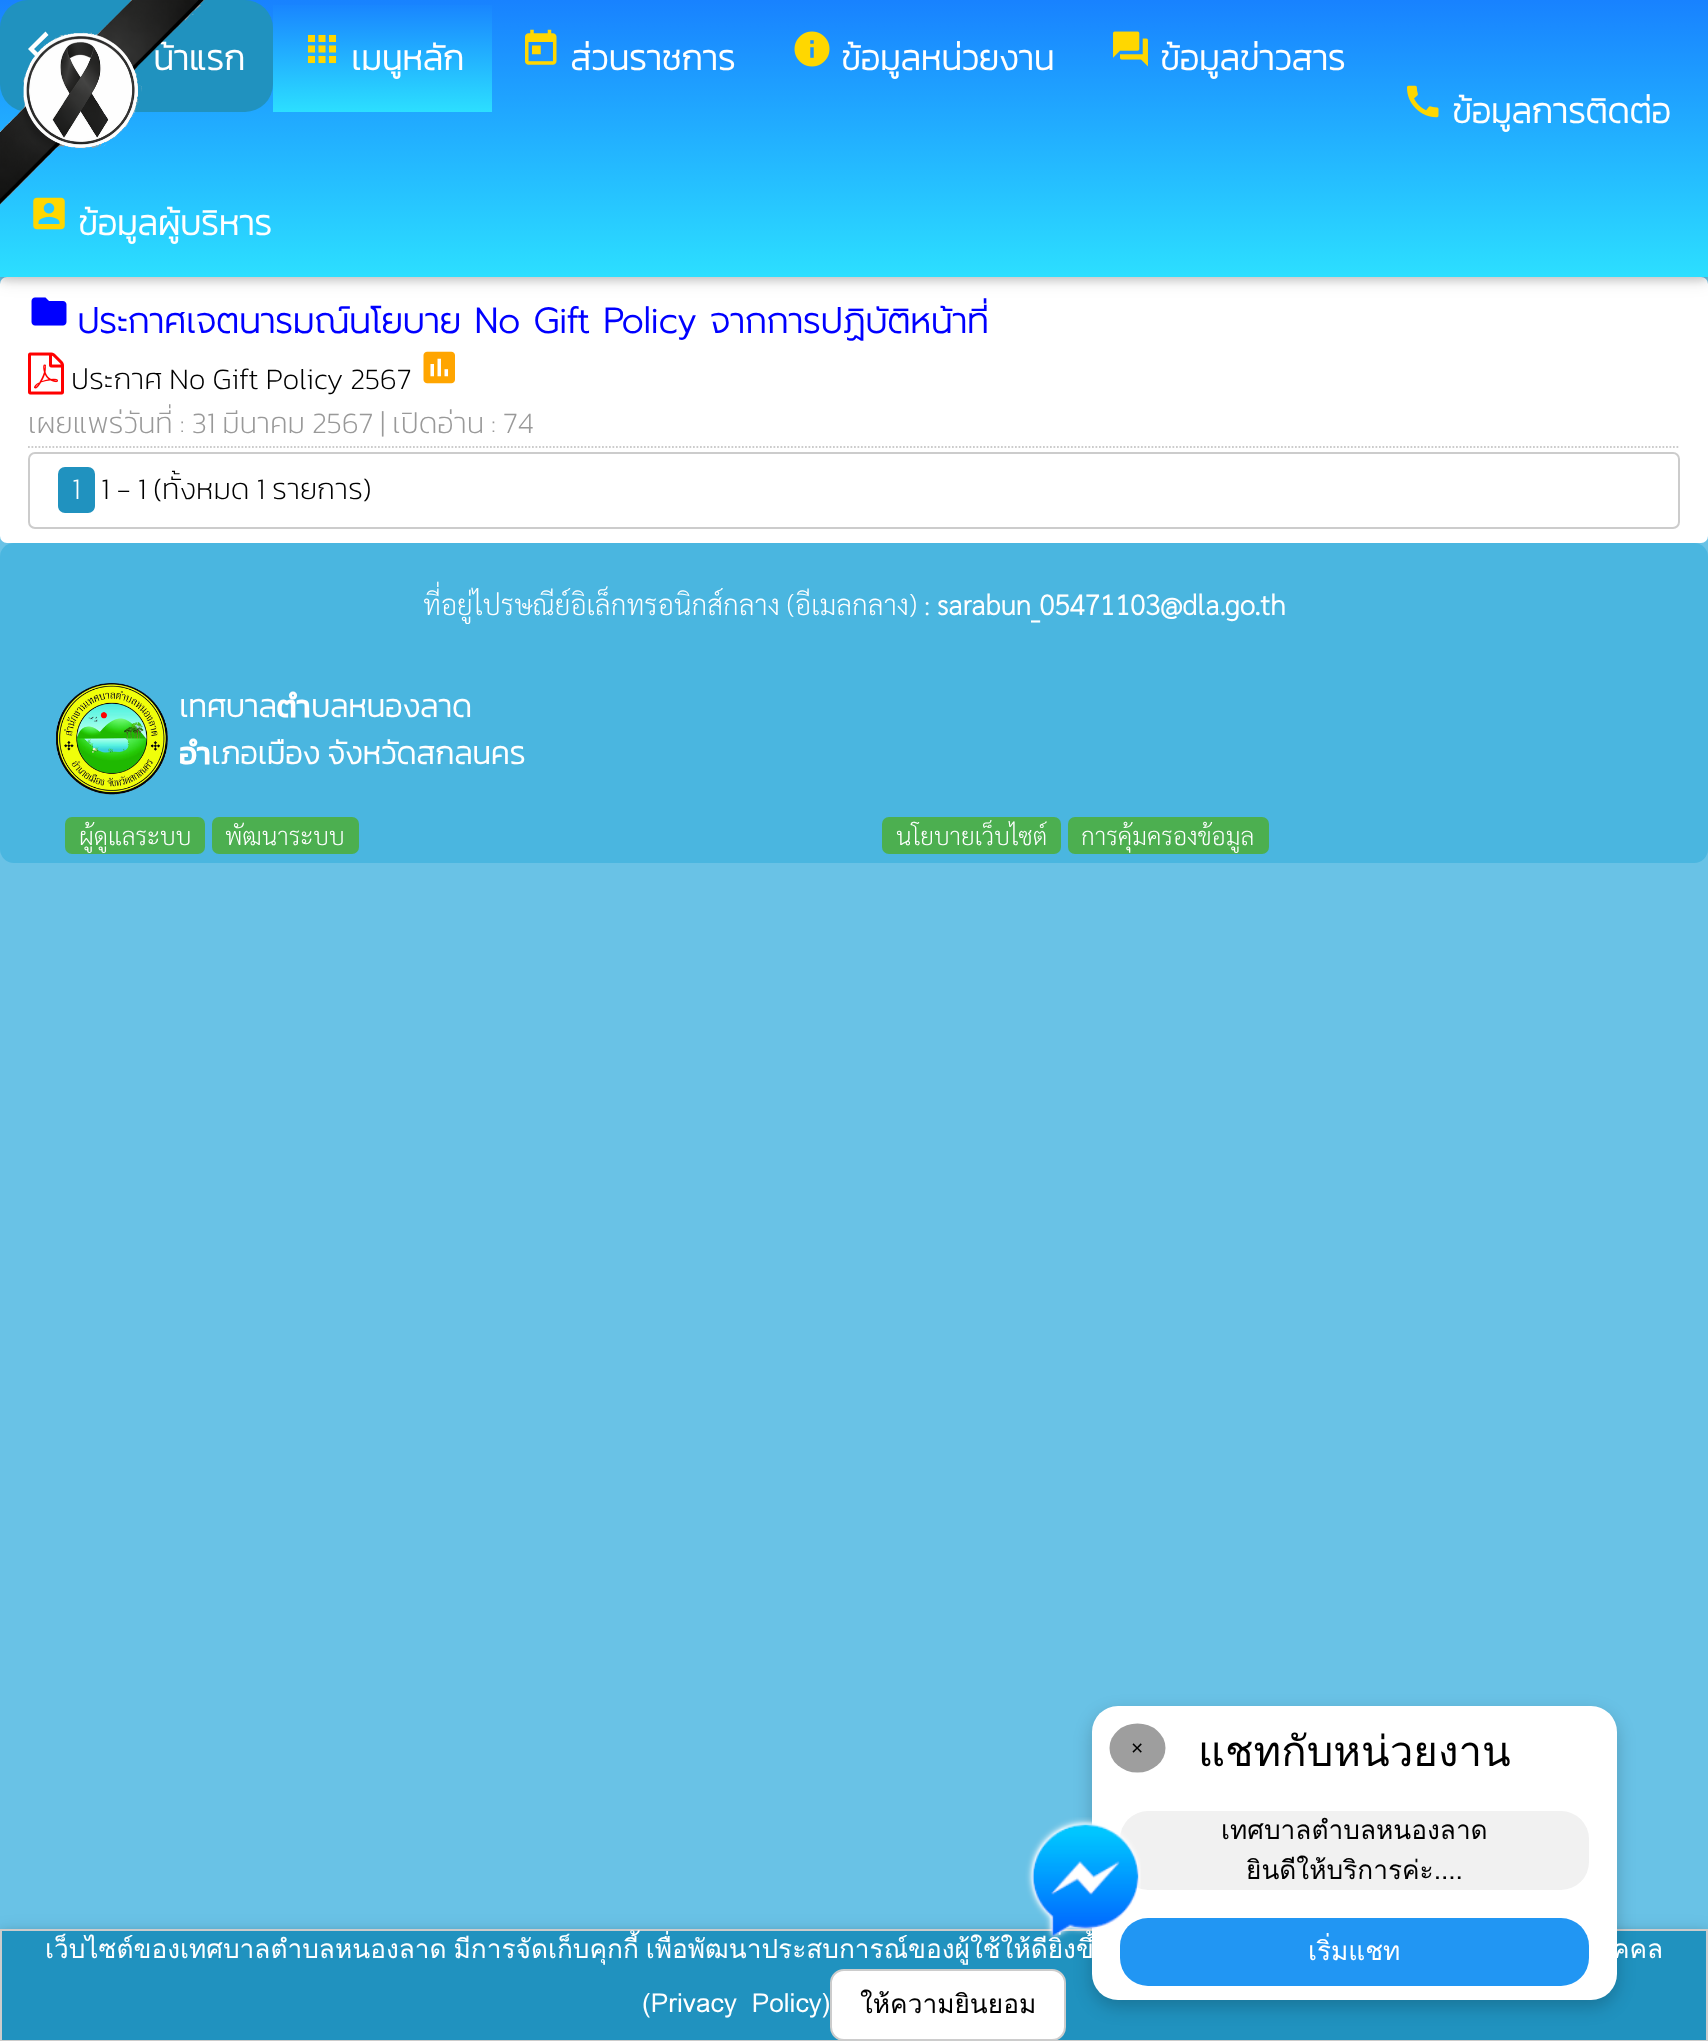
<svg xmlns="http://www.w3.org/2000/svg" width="1708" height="2041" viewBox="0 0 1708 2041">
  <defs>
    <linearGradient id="g1" gradientUnits="userSpaceOnUse" x1="854" y1="0" x2="854" y2="277"><stop offset="0" stop-color="#1882ff"/><stop offset="1" stop-color="#2cdfff"/></linearGradient>
    <linearGradient id="g2" gradientUnits="userSpaceOnUse" x1="382" y1="0" x2="382" y2="112"><stop offset="0" stop-color="#1882ff"/><stop offset="1" stop-color="#2cdfff"/></linearGradient>
    <clipPath id="clip1"><path d="M179 683h1473v94H179z"/></clipPath>
  </defs>
  <rect width="100%" height="100%" fill="#69c2e6"/>
  <rect y="277" width="1708" height="266" rx="7" fill="#fff"/>
  <image x="31" y="297" width="36" height="29" href="img/8.png"/>
  <path d="M0 4h1708v276H0z" fill="#0000001f" filter="blur(9px)"/>
  <path d="M0 4h1708v276H0z" fill="#00000029" filter="blur(4.5px)"/>
  <path d="M0 0h1708v277H0z" fill="url(#g1)"/>
  <rect width="273" height="112" rx="28" fill="#2092bf"/>
  <path d="M48.5 35L34 49L48.5 63L45.5 66.5L28 49L45.5 31.5Z" fill="#fff"/>
  <path d="M273 5h219v107H273z" fill="url(#g2)"/>
  <image x="307" y="34" width="30" height="30" href="img/2.png"/>
  <image x="525" y="29" width="32" height="36" href="img/3.png"/>
  <image x="794" y="31" width="36" height="36" href="img/4.png"/>
  <image x="1113" y="31" width="35" height="36" href="img/5.png"/>
  <image x="1407" y="85" width="32" height="33" href="img/6.png"/>
  <image x="33" y="197" width="32" height="33" href="img/7.png"/>
  <image x="28" y="352" width="36" height="43" href="img/9.png"/>
  <image x="423" y="351" width="32" height="33" href="img/10.png"/>
  <path d="M28 447H1680" fill="none" stroke="#ccc" stroke-width="1.8" stroke-dasharray="1.75 1.75"/>
  <rect x="29" y="453" width="1650" height="75" rx="6" fill="none" stroke="#ccc" stroke-width="2"/>
  <rect x="58" y="467" width="37" height="46" rx="7" fill="#2092bf"/>
  <rect y="543" width="1708" height="320" rx="14" fill="#4ab6e0"/>
  <image x="56" y="683" width="112" height="112" href="img/11.png"/>
  <rect x="65" y="817" width="140" height="37" rx="7" fill="#4caf50"/>
  <rect x="212" y="817" width="147" height="37" rx="7" fill="#4caf50"/>
  <rect x="882" y="817" width="179" height="37" rx="7" fill="#4caf50"/>
  <rect x="1068" y="817" width="201" height="37" rx="7" fill="#4caf50"/>
  <path d="M0 1932h1708v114H0z" fill="#0000001f" filter="blur(9px)"/>
  <path d="M0 1932h1708v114H0z" fill="#00000029" filter="blur(4.5px)"/>
  <path d="M1 1930h1706v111H1z" fill="#2092bf" stroke="#ccc" stroke-width="2"/>
  <rect x="831" y="1970" width="234" height="70" rx="13" fill="#fff" stroke="#ccc" stroke-width="2"/>
  <rect x="1092" y="1713" width="525" height="294" rx="26" fill="#00000033" filter="blur(9px)"/>
  <rect x="1092" y="1706" width="525" height="294" rx="26" fill="#fff"/>
  <ellipse cx="1137.5" cy="1748" rx="28" ry="24.5" fill="#9e9e9e"/>
  <rect x="1120" y="1811" width="469" height="79" rx="28" fill="#f1f1f1"/>
  <rect x="1120" y="1918" width="469" height="68" rx="28" fill="#2196f3"/>
  <g font-family="Kanit" font-size="35" font-weight="bold" fill="#fff">
    <text x="153" y="70">น้าแรก</text>
    <text x="351" y="70">เมนูหลัก</text>
    <text x="570" y="70">ส่วนราชการ</text>
    <text x="841" y="70">ข้อมูลหน่วยงาน</text>
    <text x="1160" y="70">ข้อมูลข่าวสาร</text>
    <text x="1452" y="123">ข้อมูลการติดต่อ</text>
    <text x="78" y="235">ข้อมูลผู้บริหาร</text>
  </g>
  <image x="0" y="0" width="205" height="209" href="img/1.png"/>
  <text x="77" y="333" font-family="Prompt" font-size="35" font-weight="bold" fill="#00f">ประกาศเจตนารมณ์นโยบาย No Gift Policy จากการปฏิบัติหน้าที่</text>
  <text x="71" y="389" font-family="Kanit" font-size="29.75" font-weight="200" fill="#000">ประกาศ No Gift Policy 2567</text>
  <text x="28" y="433" font-family="Kanit" font-size="29.75" font-weight="200" fill="#999">เผยแพร่วันที่ : 31 มีนาคม 2567 | เปิดอ่าน : 74</text>
  <text x="72" y="499" font-family="Kanit" font-size="29.75" font-weight="200" fill="#fff">1</text>
  <text x="101" y="499" font-family="Kanit" font-size="29.75" font-weight="200" fill="#000">1 - 1 (ทั้งหมด 1 รายการ)</text>
  <text x="423" y="615" font-family="Sarabun" font-size="28" font-weight="200" fill="#fff">ที่อยู่ไปรษณีย์อิเล็กทรอนิกส์กลาง (อีเมลกลาง) :</text>
  <text x="937" y="615" font-family="Sarabun" font-size="28" font-weight="bold" fill="#fff">sarabun_05471103@dla.go.th</text>
  <text x="179" y="717" font-family="Kanit" font-size="31.5" font-weight="bold" fill="#fff">เทศบาลตำบลหนองลาด</text>
  <g clip-path="url(#clip1)">
    <text x="179" y="764" font-family="Kanit" font-size="31.5" font-weight="bold" fill="#fff">อำเภอเมือง จังหวัดสกลนคร</text>
  </g>
  <g font-family="Sarabun" font-size="24.5" font-weight="200" fill="#fff">
    <text x="79" y="845">ผู้ดูแลระบบ</text>
    <text x="225" y="845">พัฒนาระบบ</text>
    <text x="896" y="845">นโยบายเว็บไซต์</text>
    <text x="1081" y="845">การคุ้มครองข้อมูล</text>
  </g>
  <text x="1131" y="1755" font-family="Liberation Sans" font-size="21" fill="#000">×</text>
  <text x="1198" y="1766" font-family="Loma" font-size="42" fill="#000">แชทกับหน่วยงาน</text>
  <g font-family="Loma" font-size="26.25" fill="#000">
    <text x="1221" y="1839">เทศบาลตำบลหนองลาด</text>
    <text x="1246" y="1879">ยินดีให้บริการค่ะ....</text>
  </g>
  <g font-family="Loma" font-size="26.25" fill="#fff">
    <text x="1308" y="1960">เริ่มแชท</text>
    <text x="45" y="1958" word-spacing="-2">เว็บไซต์ของเทศบาลตำบลหนองลาด มีการจัดเก็บคุกกี้ เพื่อพัฒนาประสบการณ์ของผู้ใช้ให้ดียิ่งขึ้</text>
  </g>
  <image x="1025" y="1817" width="116" height="122" href="img/12.png"/>
  <g font-family="Loma" font-size="26.25" fill="#fff">
    <text x="1612" y="1958" word-spacing="-2">คคล</text>
    <text x="642" y="2012" word-spacing="6">(Privacy Policy)</text>
  </g>
  <text x="860" y="2013" font-family="Loma" font-size="26.25" fill="#000">ให้ความยินยอม</text>
</svg>
